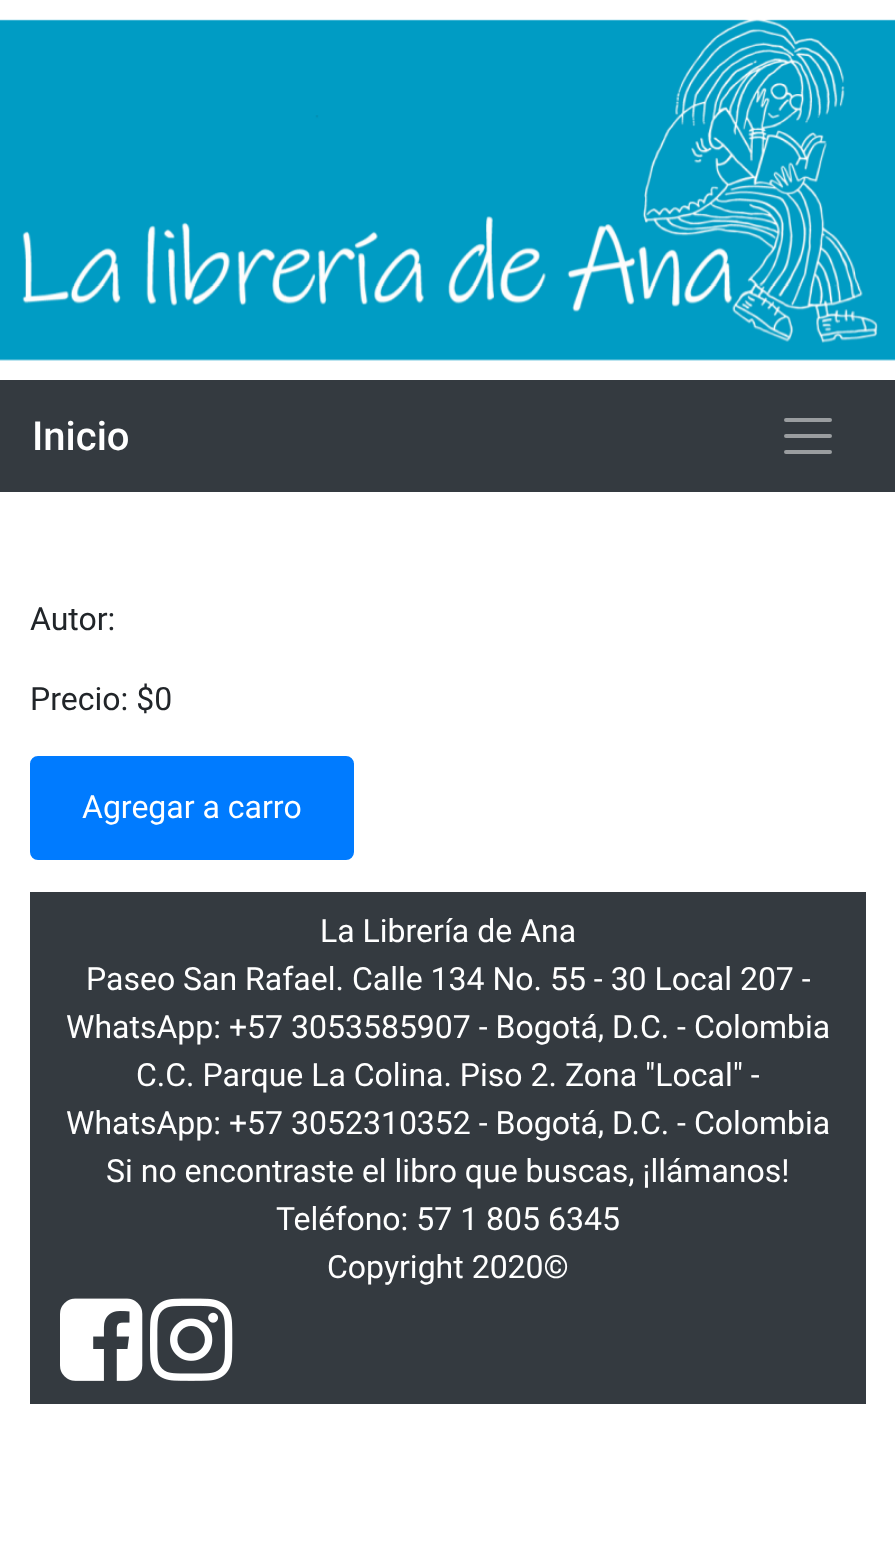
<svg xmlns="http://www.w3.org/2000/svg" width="895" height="1547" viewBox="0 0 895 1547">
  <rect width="100%" height="100%" fill="#fff"/>
  <image x="0" y="19" width="895" height="342" href="img/1.png"/>
  <path d="M0 380h895v112H0z" fill="#343a40"/>
  <path d="M786 420H830M786 436H830M786 452H830" fill="none" stroke="#9a9da0" stroke-width="4" stroke-linecap="round"/>
  <rect x="31" y="757" width="322" height="102" rx="7" fill="#007bff" stroke="#007bff" stroke-width="2"/>
  <path d="M30 892h836v512H30z" fill="#343a40"/>
  <image x="60" y="1298" width="83" height="83" href="img/2.png"/>
  <image x="150" y="1298" width="83" height="83" href="img/3.png"/>
  <text x="32" y="450" font-family="Roboto" font-size="40" font-weight="500" fill="#fff">Inicio</text>
  <g font-family="Roboto" font-size="32" fill="#212529">
    <text x="30" y="630">Autor:</text>
    <text x="30" y="710">Precio: $0</text>
  </g>
  <g font-family="Roboto" font-size="32" fill="#fff">
    <text x="82" y="818">Agregar a carro</text>
    <text x="320" y="942">La Librería de Ana</text>
    <text x="86" y="990">Paseo San Rafael. Calle 134 No. 55 - 30 Local 207 -</text>
    <text x="66" y="1038">WhatsApp: +57 3053585907 - Bogotá, D.C. - Colombia</text>
    <text x="136" y="1086">C.C. Parque La Colina. Piso 2. Zona "Local" -</text>
    <text x="66" y="1134">WhatsApp: +57 3052310352 - Bogotá, D.C. - Colombia</text>
    <text x="106" y="1182">Si no encontraste el libro que buscas, ¡llámanos!</text>
    <text x="276" y="1230">Teléfono: 57 1 805 6345</text>
    <text x="327" y="1278">Copyright 2020©</text>
  </g>
</svg>
